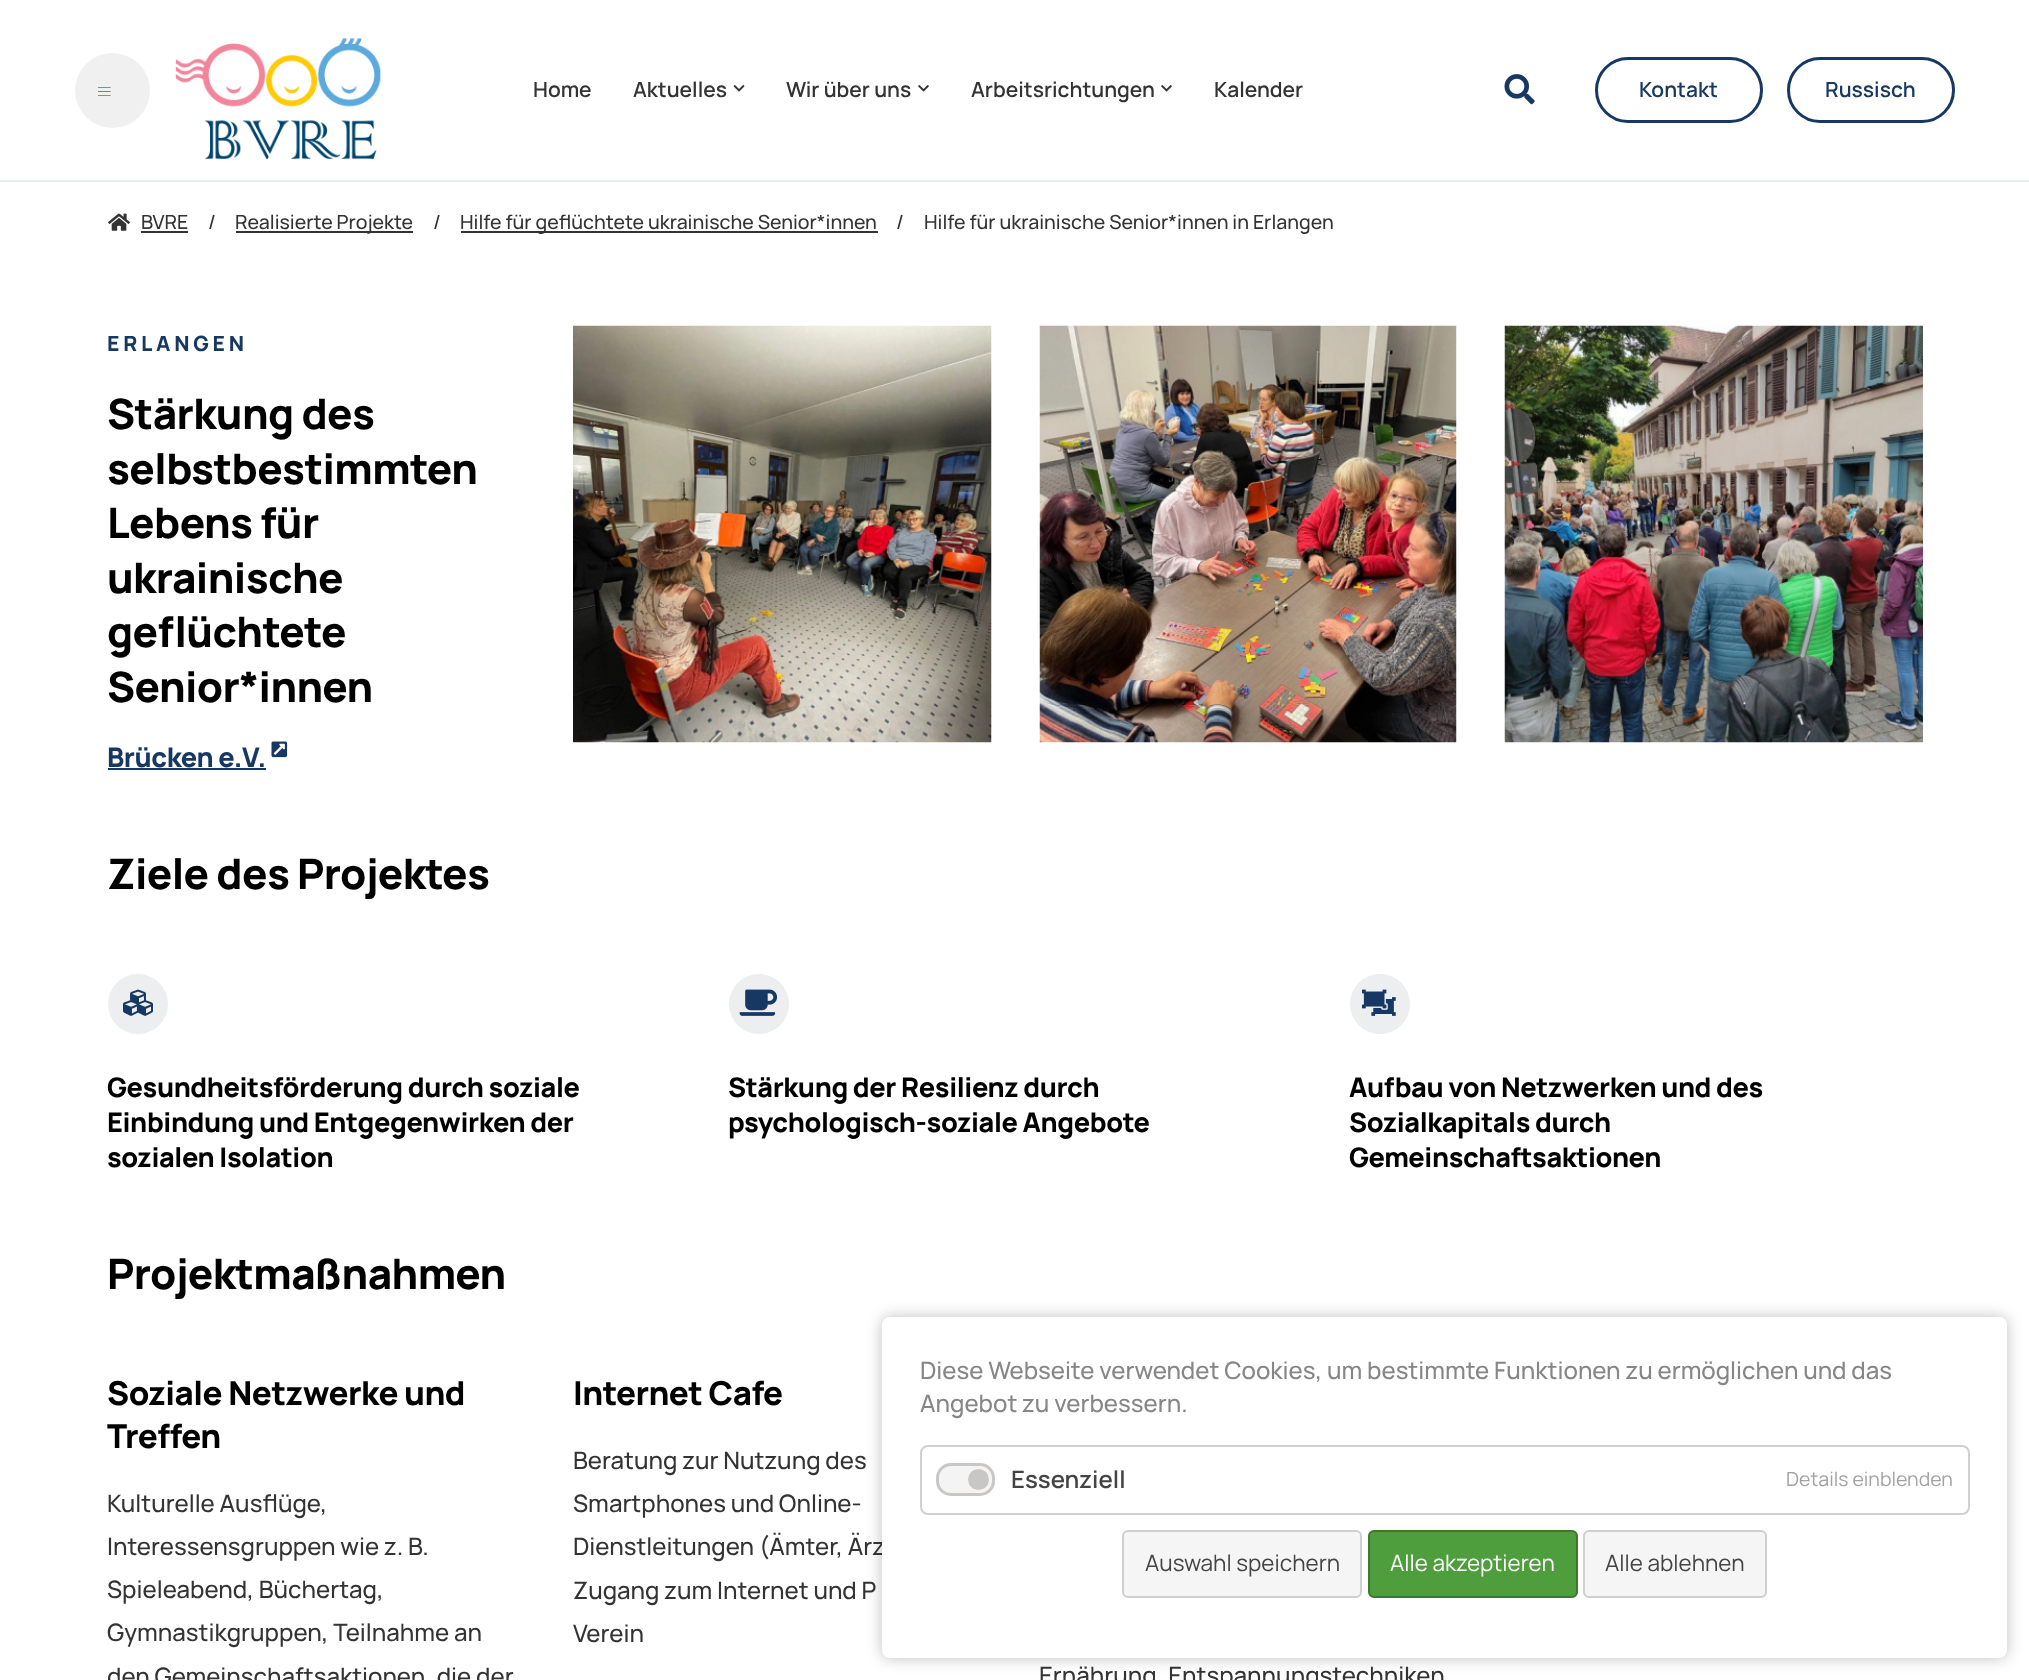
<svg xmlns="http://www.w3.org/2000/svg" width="2029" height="1680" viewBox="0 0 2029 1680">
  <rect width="100%" height="100%" fill="#fff"/>
  <circle cx="112.5" cy="90.5" r="37.5" fill="#f0f0f0"/>
  <image x="98" y="87" width="13" height="9" href="img/1.png"/>
  <image x="175" y="38" width="206" height="122" href="img/2.png"/>
  <image x="733" y="85" width="12" height="7" href="img/3.png"/>
  <image x="918" y="85" width="11" height="7" href="img/4.png"/>
  <image x="1161" y="85" width="11" height="7" href="img/4.png"/>
  <image x="1504" y="74" width="31" height="31" href="img/5.png"/>
  <rect x="1596.5" y="58.5" width="165" height="63" rx="31.5" fill="none" stroke="#173863" stroke-width="3"/>
  <rect x="1788.5" y="58.5" width="165" height="63" rx="31.5" fill="none" stroke="#173863" stroke-width="3"/>
  <path d="M0 180h2029v2H0z" fill="#e9ecef"/>
  <image x="108" y="213" width="22" height="18" href="img/6.png"/>
  <path d="M141 231h47v2H141z" fill="#333"/>
  <path d="M236 231h177v2H236z" fill="#333"/>
  <path d="M461 231h417v2H461z" fill="#333"/>
  <path d="M108 768h158v2H108z" fill="#173863"/>
  <image x="271" y="741" width="17" height="17" href="img/7.png"/>
  <image x="573" y="325" width="419" height="418" href="img/8.png"/>
  <image x="1039" y="325" width="418" height="418" href="img/9.png"/>
  <image x="1504" y="325" width="419" height="418" href="img/10.png"/>
  <circle cx="138" cy="1004" r="30" fill="#edeeef"/>
  <image x="123" y="989" width="30" height="27" href="img/11.png"/>
  <circle cx="759" cy="1004" r="30" fill="#edeeef"/>
  <image x="739" y="989" width="39" height="27" href="img/12.png"/>
  <circle cx="1380" cy="1004" r="30" fill="#edeeef"/>
  <image x="1362" y="989" width="34" height="27" href="img/13.png"/>
  <rect x="882" y="1317" width="1125" height="341" rx="8" fill="#00000040" filter="blur(7.5px)"/>
  <g font-family="Manrope" font-size="21" font-weight="600" fill="#333">
    <text x="533" y="97">Home</text>
    <text x="633" y="97">Aktuelles</text>
    <text x="786" y="97">Wir über uns</text>
    <text x="971" y="97">Arbeitsrichtungen</text>
    <text x="1214" y="97">Kalender</text>
  </g>
  <g font-family="Manrope" font-size="21" font-weight="600" fill="#173863">
    <text x="1639" y="97">Kontakt</text>
    <text x="1825" y="97">Russisch</text>
  </g>
  <g font-family="Manrope" font-size="19.5" font-weight="500" fill="#333">
    <text x="141" y="229">BVRE</text>
    <text x="208" y="229">/</text>
    <text x="235" y="229">Realisierte Projekte</text>
    <text x="433" y="229">/</text>
    <text x="460" y="229">Hilfe für geflüchtete ukrainische Senior*innen</text>
    <text x="896" y="229">/</text>
    <text x="924" y="229">Hilfe für ukrainische Senior*innen in Erlangen</text>
  </g>
  <text x="107" y="351" font-family="Manrope" font-size="21" font-weight="800" letter-spacing="3.75" fill="#173863">ERLANGEN</text>
  <g font-family="Manrope" font-size="42" font-weight="800" letter-spacing="-0.6" fill="#000">
    <text x="107" y="429">Stärkung des</text>
    <text x="107" y="484">selbstbestimmten</text>
    <text x="107" y="538">Lebens für</text>
    <text x="107" y="593">ukrainische</text>
    <text x="107" y="647">geflüchtete</text>
    <text x="107" y="702">Senior*innen</text>
  </g>
  <text x="107" y="767" font-family="Manrope" font-size="27" font-weight="800" letter-spacing="-0.4" fill="#173863">Brücken e.V.</text>
  <text x="107" y="889" font-family="Manrope" font-size="42" font-weight="800" letter-spacing="-0.6" fill="#000">Ziele des Projektes</text>
  <g font-family="Manrope" font-size="27" font-weight="800" letter-spacing="-0.4" fill="#000">
    <text x="107" y="1097">Gesundheitsförderung durch soziale</text>
    <text x="107" y="1132">Einbindung und Entgegenwirken der</text>
    <text x="107" y="1167">sozialen Isolation</text>
    <text x="728" y="1097">Stärkung der Resilienz durch</text>
    <text x="728" y="1132">psychologisch-soziale Angebote</text>
    <text x="1349" y="1097">Aufbau von Netzwerken und des</text>
    <text x="1349" y="1132">Sozialkapitals durch</text>
    <text x="1349" y="1167">Gemeinschaftsaktionen</text>
  </g>
  <text x="107" y="1289" font-family="Manrope" font-size="42" font-weight="800" letter-spacing="-0.6" fill="#000">Projektmaßnahmen</text>
  <g font-family="Manrope" font-size="33" font-weight="800" letter-spacing="-0.5" fill="#000">
    <text x="107" y="1405">Soziale Netzwerke und</text>
    <text x="107" y="1448">Treffen</text>
  </g>
  <g font-family="Manrope" font-size="24" font-weight="500" fill="#333">
    <text x="107" y="1512">Kulturelle Ausflüge,</text>
    <text x="107" y="1555">Interessensgruppen wie z. B.</text>
    <text x="107" y="1598">Spieleabend, Büchertag,</text>
    <text x="107" y="1641">Gymnastikgruppen, Teilnahme an</text>
    <text x="107" y="1685">den Gemeinschaftsaktionen, die der</text>
  </g>
  <text x="573" y="1405" font-family="Manrope" font-size="33" font-weight="800" letter-spacing="-0.5" fill="#000">Internet Cafe</text>
  <g font-family="Manrope" font-size="24" font-weight="500" fill="#333">
    <text x="573" y="1469">Beratung zur Nutzung des</text>
    <text x="573" y="1512">Smartphones und Online-</text>
    <text x="573" y="1555">Dienstleitungen (Ämter, Ärz</text>
    <text x="573" y="1599">Zugang zum Internet und P</text>
    <text x="573" y="1642">Verein</text>
    <text x="1039" y="1684">Ernährung, Entspannungstechniken</text>
  </g>
  <rect x="882" y="1317" width="1125" height="341" rx="8" fill="#fff"/>
  <g font-family="Manrope" font-size="24" font-weight="500" fill="#868686">
    <text x="920" y="1379">Diese Webseite verwendet Cookies, um bestimmte Funktionen zu ermöglichen und das</text>
    <text x="920" y="1412">Angebot zu verbessern.</text>
  </g>
  <rect x="921" y="1446" width="1048" height="68" rx="7" fill="none" stroke="#d0d0d0" stroke-width="2"/>
  <rect x="937.5" y="1464.5" width="56" height="30" rx="13.5" fill="#f4f4f4" stroke="#c8c7c5" stroke-width="3"/>
  <circle cx="978.5" cy="1479.5" r="10.5" fill="#c8c7c5"/>
  <text x="1011" y="1488" font-family="Manrope" font-size="24" font-weight="600" fill="#444">Essenziell</text>
  <text x="1786" y="1486" font-family="Manrope" font-size="19.5" fill="#a2a2a2">Details einblenden</text>
  <rect x="1123" y="1531" width="238" height="66" rx="5" fill="#f5f5f5" stroke="#cfcfcf" stroke-width="2"/>
  <text x="1145" y="1571" font-family="Manrope" font-size="22.5" fill="#444">Auswahl speichern</text>
  <rect x="1369" y="1531" width="208" height="66" rx="5" fill="#4e9e3e" stroke="#3e7830" stroke-width="2"/>
  <text x="1390" y="1571" font-family="Manrope" font-size="22.5" fill="#fff">Alle akzeptieren</text>
  <rect x="1584" y="1531" width="182" height="66" rx="5" fill="#f5f5f5" stroke="#cfcfcf" stroke-width="2"/>
  <text x="1605" y="1571" font-family="Manrope" font-size="22.5" fill="#444">Alle ablehnen</text>
</svg>
